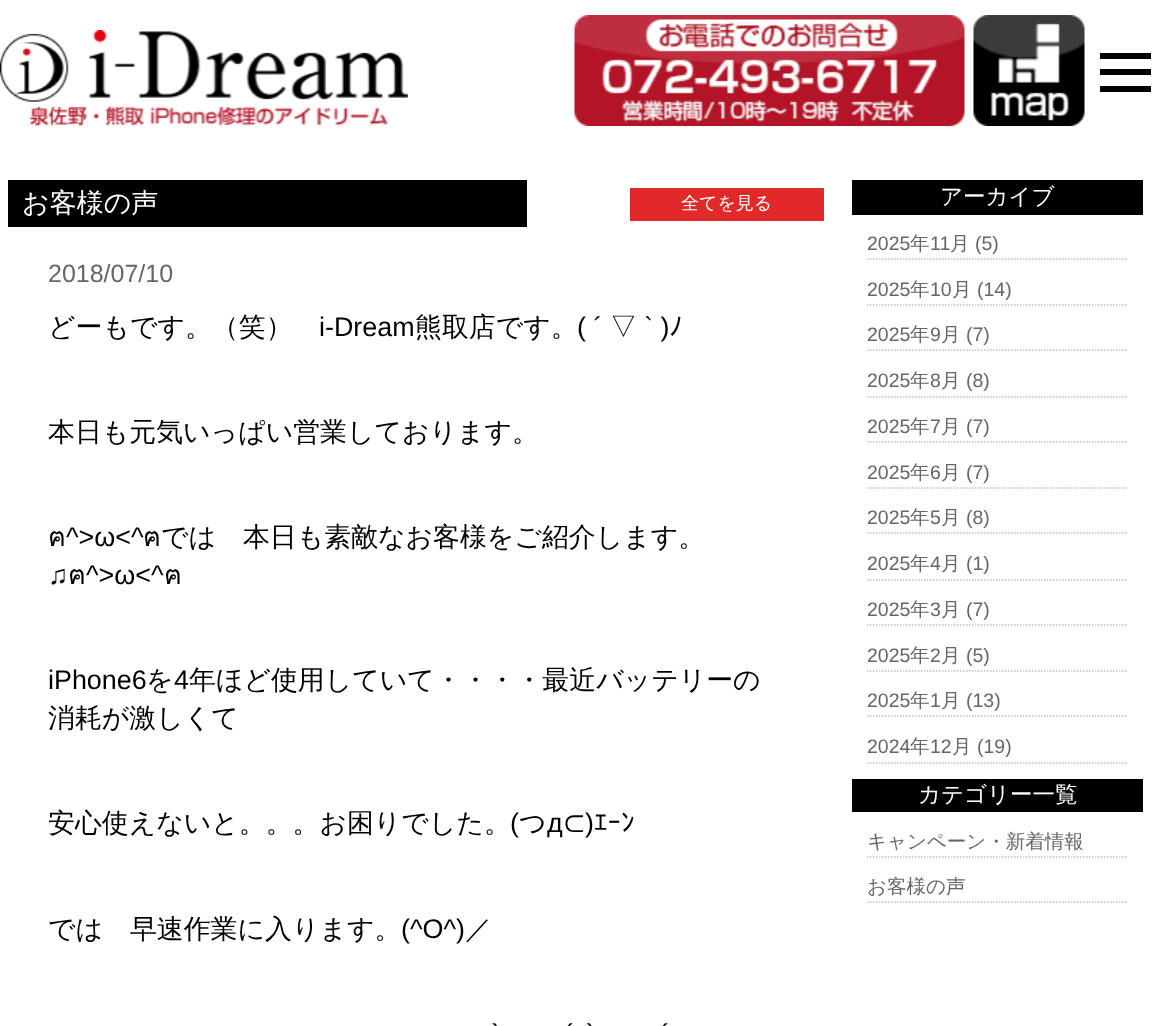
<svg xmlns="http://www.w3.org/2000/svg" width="1165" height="1026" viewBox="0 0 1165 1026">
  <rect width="100%" height="100%" fill="#fff"/>
  <image x="0" y="30" width="408" height="97" href="img/1.png"/>
  <image x="574" y="15" width="391" height="111" href="img/2.png"/>
  <image x="973" y="15" width="112" height="111" href="img/3.png"/>
  <path d="M1100 53h51v6H1100z" fill="#000"/>
  <path d="M1100 69h51v6H1100z" fill="#000"/>
  <path d="M1100 86h51v6H1100z" fill="#000"/>
  <path d="M8 180h519v47H8z" fill="#000"/>
  <path d="M630 188h194v33H630z" fill="#e22929"/>
  <path d="M852 180h291v35H852z" fill="#000"/>
  <path d="M867 259H1128" fill="none" stroke="#c0c0c0" stroke-width="1.5" stroke-dasharray="1.5 1.5"/>
  <path d="M867 305H1128" fill="none" stroke="#c0c0c0" stroke-width="1.5" stroke-dasharray="1.5 1.5"/>
  <path d="M867 350H1128" fill="none" stroke="#c0c0c0" stroke-width="1.5" stroke-dasharray="1.5 1.5"/>
  <path d="M867 397H1128" fill="none" stroke="#c0c0c0" stroke-width="1.5" stroke-dasharray="1.5 1.5"/>
  <path d="M867 442H1128" fill="none" stroke="#c0c0c0" stroke-width="1.5" stroke-dasharray="1.5 1.5"/>
  <path d="M867 488H1128" fill="none" stroke="#c0c0c0" stroke-width="1.5" stroke-dasharray="1.5 1.5"/>
  <path d="M867 533H1128" fill="none" stroke="#c0c0c0" stroke-width="1.5" stroke-dasharray="1.5 1.5"/>
  <path d="M867 580H1128" fill="none" stroke="#c0c0c0" stroke-width="1.5" stroke-dasharray="1.5 1.5"/>
  <path d="M867 625H1128" fill="none" stroke="#c0c0c0" stroke-width="1.5" stroke-dasharray="1.5 1.5"/>
  <path d="M867 671H1128" fill="none" stroke="#c0c0c0" stroke-width="1.5" stroke-dasharray="1.5 1.5"/>
  <path d="M867 716H1128" fill="none" stroke="#c0c0c0" stroke-width="1.5" stroke-dasharray="1.5 1.5"/>
  <path d="M867 763H1128" fill="none" stroke="#c0c0c0" stroke-width="1.5" stroke-dasharray="1.5 1.5"/>
  <path d="M852 779h291v33H852z" fill="#000"/>
  <path d="M867 857H1128" fill="none" stroke="#c0c0c0" stroke-width="1.5" stroke-dasharray="1.5 1.5"/>
  <path d="M867 902H1128" fill="none" stroke="#c0c0c0" stroke-width="1.5" stroke-dasharray="1.5 1.5"/>
  <text x="22" y="212" font-family="WenQuanYi Zen Hei" font-size="27" font-weight="500" fill="#fff">お客様の声</text>
  <text x="681" y="209" font-family="WenQuanYi Zen Hei" font-size="18" font-weight="500" fill="#fff">全てを見る</text>
  <text x="48" y="282" font-family="Liberation Sans" font-size="25" fill="#666">2018/07/10</text>
  <text x="48" y="336" font-family="WenQuanYi Zen Hei" font-size="26.9" font-weight="500" fill="#000">どーもです。（笑）</text>
  <text x="319" y="336" font-family="Liberation Sans" font-size="26.9" fill="#000">i-Dream</text>
  <text x="415" y="336" font-family="WenQuanYi Zen Hei" font-size="26.9" font-weight="500" fill="#000">熊取店です。</text>
  <text x="577" y="336" font-family="Liberation Sans" font-size="26.9" fill="#000">( ´</text>
  <text x="610" y="336" font-family="WenQuanYi Zen Hei" font-size="26.9" font-weight="500" fill="#000">▽</text>
  <text x="644" y="336" font-family="Liberation Sans" font-size="26.9" fill="#000">` )</text>
  <text x="669" y="336" font-family="IPAPGothic" font-size="26.9" fill="#000">ﾉ</text>
  <text x="48" y="441" font-family="WenQuanYi Zen Hei" font-size="26.9" font-weight="500" fill="#000">本日も元気いっぱい営業しております。</text>
  <text x="48" y="546" font-family="Loma" font-size="26.9" fill="#000">ฅ</text>
  <text x="66" y="546" font-family="Liberation Sans" font-size="26.9" fill="#000">^&gt;ω&lt;^</text>
  <text x="143" y="546" font-family="Loma" font-size="26.9" fill="#000">ฅ</text>
  <text x="161" y="546" font-family="WenQuanYi Zen Hei" font-size="26.9" font-weight="500" fill="#000">では　本日も素敵なお客様をご紹介します。</text>
  <text x="48" y="584" font-family="Liberation Sans" font-size="26.9" fill="#000">♫</text>
  <text x="68" y="584" font-family="Loma" font-size="26.9" fill="#000">ฅ</text>
  <text x="86" y="584" font-family="Liberation Sans" font-size="26.9" fill="#000">^&gt;ω&lt;^</text>
  <text x="164" y="584" font-family="Loma" font-size="26.9" fill="#000">ฅ</text>
  <text x="48" y="689" font-family="Liberation Sans" font-size="26.9" fill="#000">iPhone6</text>
  <text x="146" y="689" font-family="WenQuanYi Zen Hei" font-size="26.9" font-weight="500" fill="#000">を</text>
  <text x="174" y="689" font-family="Liberation Sans" font-size="26.9" fill="#000">4</text>
  <g font-family="WenQuanYi Zen Hei" font-size="26.9" font-weight="500" fill="#000">
    <text x="189" y="689">年ほど使用していて・・・・最近バッテリーの</text>
    <text x="48" y="727">消耗が激しくて</text>
    <text x="48" y="832">安心使えないと。。。お困りでした。</text>
  </g>
  <text x="510" y="832" font-family="Liberation Sans" font-size="26.9" fill="#000">(</text>
  <text x="519" y="832" font-family="WenQuanYi Zen Hei" font-size="26.9" font-weight="500" fill="#000">つ</text>
  <text x="547" y="832" font-family="Liberation Sans" font-size="26.9" fill="#000">д</text>
  <text x="563" y="832" font-family="WenQuanYi Zen Hei" font-size="26.9" font-weight="500" fill="#000">⊂</text>
  <text x="585" y="832" font-family="Liberation Sans" font-size="26.9" fill="#000">)</text>
  <text x="594" y="832" font-family="IPAPGothic" font-size="26.9" fill="#000">ｴｰﾝ</text>
  <text x="48" y="938" font-family="WenQuanYi Zen Hei" font-size="26.9" font-weight="500" fill="#000">では　早速作業に入ります。</text>
  <text x="401" y="938" font-family="Liberation Sans" font-size="26.9" fill="#000">(^O^)</text>
  <text x="465" y="938" font-family="WenQuanYi Zen Hei" font-size="26.9" font-weight="500" fill="#000">／</text>
  <g font-family="Liberation Sans" font-size="26.9" fill="#000">
    <text x="491" y="1043" word-spacing="3">`</text>
    <text x="566" y="1043" word-spacing="3">´ `</text>
    <text x="661" y="1043" word-spacing="3">´</text>
  </g>
  <text x="940" y="204" font-family="WenQuanYi Zen Hei" font-size="22.5" font-weight="500" fill="#fff">アーカイブ</text>
  <text x="867" y="250" font-family="Liberation Sans" font-size="19.5" fill="#666">2025</text>
  <text x="910" y="250" font-family="WenQuanYi Zen Hei" font-size="19.5" font-weight="500" fill="#666">年</text>
  <text x="930" y="250" font-family="Liberation Sans" font-size="19.5" fill="#666">11</text>
  <text x="950" y="250" font-family="WenQuanYi Zen Hei" font-size="19.5" font-weight="500" fill="#666">月</text>
  <g font-family="Liberation Sans" font-size="19.5" fill="#666">
    <text x="975" y="250">(5)</text>
    <text x="867" y="296">2025</text>
  </g>
  <text x="910" y="296" font-family="WenQuanYi Zen Hei" font-size="19.5" font-weight="500" fill="#666">年</text>
  <text x="930" y="296" font-family="Liberation Sans" font-size="19.5" fill="#666">10</text>
  <text x="952" y="296" font-family="WenQuanYi Zen Hei" font-size="19.5" font-weight="500" fill="#666">月</text>
  <g font-family="Liberation Sans" font-size="19.5" fill="#666">
    <text x="977" y="296">(14)</text>
    <text x="867" y="341">2025</text>
  </g>
  <text x="910" y="341" font-family="WenQuanYi Zen Hei" font-size="19.5" font-weight="500" fill="#666">年</text>
  <text x="930" y="341" font-family="Liberation Sans" font-size="19.5" fill="#666">9</text>
  <text x="941" y="341" font-family="WenQuanYi Zen Hei" font-size="19.5" font-weight="500" fill="#666">月</text>
  <g font-family="Liberation Sans" font-size="19.5" fill="#666">
    <text x="966" y="341">(7)</text>
    <text x="867" y="387">2025</text>
  </g>
  <text x="910" y="387" font-family="WenQuanYi Zen Hei" font-size="19.5" font-weight="500" fill="#666">年</text>
  <text x="930" y="387" font-family="Liberation Sans" font-size="19.5" fill="#666">8</text>
  <text x="941" y="387" font-family="WenQuanYi Zen Hei" font-size="19.5" font-weight="500" fill="#666">月</text>
  <g font-family="Liberation Sans" font-size="19.5" fill="#666">
    <text x="966" y="387">(8)</text>
    <text x="867" y="433">2025</text>
  </g>
  <text x="910" y="433" font-family="WenQuanYi Zen Hei" font-size="19.5" font-weight="500" fill="#666">年</text>
  <text x="930" y="433" font-family="Liberation Sans" font-size="19.5" fill="#666">7</text>
  <text x="941" y="433" font-family="WenQuanYi Zen Hei" font-size="19.5" font-weight="500" fill="#666">月</text>
  <g font-family="Liberation Sans" font-size="19.5" fill="#666">
    <text x="966" y="433">(7)</text>
    <text x="867" y="479">2025</text>
  </g>
  <text x="910" y="479" font-family="WenQuanYi Zen Hei" font-size="19.5" font-weight="500" fill="#666">年</text>
  <text x="930" y="479" font-family="Liberation Sans" font-size="19.5" fill="#666">6</text>
  <text x="941" y="479" font-family="WenQuanYi Zen Hei" font-size="19.5" font-weight="500" fill="#666">月</text>
  <g font-family="Liberation Sans" font-size="19.5" fill="#666">
    <text x="966" y="479">(7)</text>
    <text x="867" y="524">2025</text>
  </g>
  <text x="910" y="524" font-family="WenQuanYi Zen Hei" font-size="19.5" font-weight="500" fill="#666">年</text>
  <text x="930" y="524" font-family="Liberation Sans" font-size="19.5" fill="#666">5</text>
  <text x="941" y="524" font-family="WenQuanYi Zen Hei" font-size="19.5" font-weight="500" fill="#666">月</text>
  <g font-family="Liberation Sans" font-size="19.5" fill="#666">
    <text x="966" y="524">(8)</text>
    <text x="867" y="570">2025</text>
  </g>
  <text x="910" y="570" font-family="WenQuanYi Zen Hei" font-size="19.5" font-weight="500" fill="#666">年</text>
  <text x="930" y="570" font-family="Liberation Sans" font-size="19.5" fill="#666">4</text>
  <text x="941" y="570" font-family="WenQuanYi Zen Hei" font-size="19.5" font-weight="500" fill="#666">月</text>
  <g font-family="Liberation Sans" font-size="19.5" fill="#666">
    <text x="966" y="570">(1)</text>
    <text x="867" y="616">2025</text>
  </g>
  <text x="910" y="616" font-family="WenQuanYi Zen Hei" font-size="19.5" font-weight="500" fill="#666">年</text>
  <text x="930" y="616" font-family="Liberation Sans" font-size="19.5" fill="#666">3</text>
  <text x="941" y="616" font-family="WenQuanYi Zen Hei" font-size="19.5" font-weight="500" fill="#666">月</text>
  <g font-family="Liberation Sans" font-size="19.5" fill="#666">
    <text x="966" y="616">(7)</text>
    <text x="867" y="662">2025</text>
  </g>
  <text x="910" y="662" font-family="WenQuanYi Zen Hei" font-size="19.5" font-weight="500" fill="#666">年</text>
  <text x="930" y="662" font-family="Liberation Sans" font-size="19.5" fill="#666">2</text>
  <text x="941" y="662" font-family="WenQuanYi Zen Hei" font-size="19.5" font-weight="500" fill="#666">月</text>
  <g font-family="Liberation Sans" font-size="19.5" fill="#666">
    <text x="966" y="662">(5)</text>
    <text x="867" y="707">2025</text>
  </g>
  <text x="910" y="707" font-family="WenQuanYi Zen Hei" font-size="19.5" font-weight="500" fill="#666">年</text>
  <text x="930" y="707" font-family="Liberation Sans" font-size="19.5" fill="#666">1</text>
  <text x="941" y="707" font-family="WenQuanYi Zen Hei" font-size="19.5" font-weight="500" fill="#666">月</text>
  <g font-family="Liberation Sans" font-size="19.5" fill="#666">
    <text x="966" y="707">(13)</text>
    <text x="867" y="753">2024</text>
  </g>
  <text x="910" y="753" font-family="WenQuanYi Zen Hei" font-size="19.5" font-weight="500" fill="#666">年</text>
  <text x="930" y="753" font-family="Liberation Sans" font-size="19.5" fill="#666">12</text>
  <text x="952" y="753" font-family="WenQuanYi Zen Hei" font-size="19.5" font-weight="500" fill="#666">月</text>
  <text x="977" y="753" font-family="Liberation Sans" font-size="19.5" fill="#666">(19)</text>
  <text x="918" y="802" font-family="WenQuanYi Zen Hei" font-size="22.5" font-weight="500" fill="#fff">カテゴリー一覧</text>
  <g font-family="WenQuanYi Zen Hei" font-size="19.5" font-weight="500" fill="#666">
    <text x="867" y="848">キャンペーン・新着情報</text>
    <text x="867" y="893">お客様の声</text>
  </g>
</svg>
